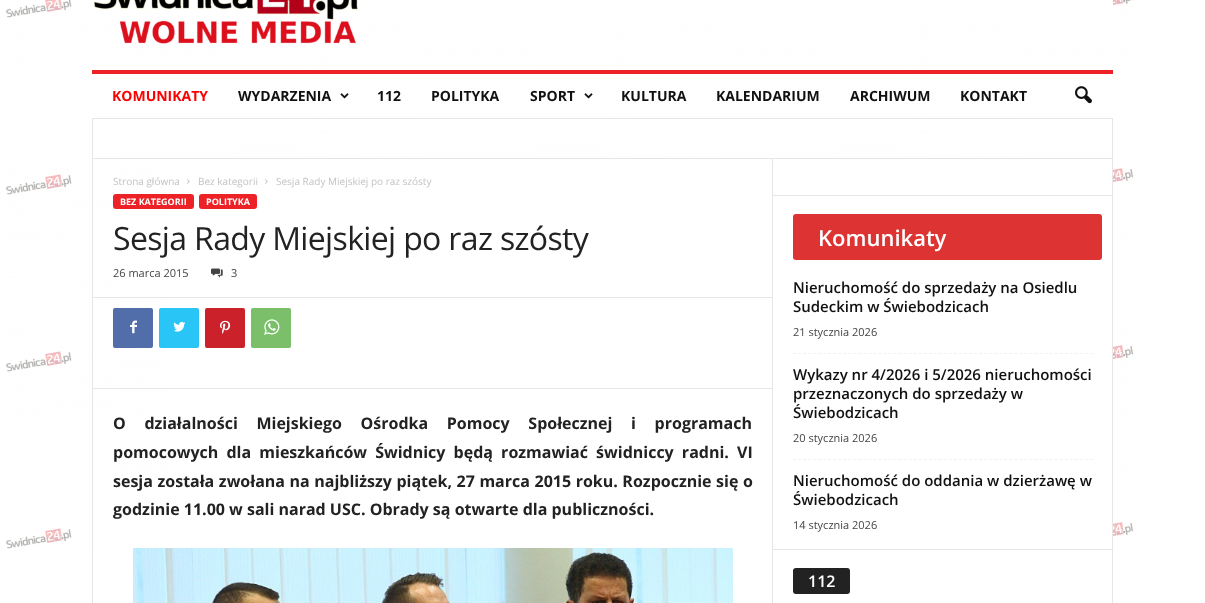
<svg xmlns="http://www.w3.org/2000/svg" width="1205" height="603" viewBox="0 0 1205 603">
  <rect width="100%" height="100%" fill="#fff"/>
  <image x="6" y="0" width="1128" height="549" href="img/1.png"/>
  <path d="M167 0h946v18H167z" fill="#fff"/>
  <image x="93" y="0" width="266" height="44" href="img/2.png"/>
  <path d="M1112 118h1v485H1112z" fill="#e6e6e6"/>
  <path d="M92 158h1021v1H92z" fill="#e6e6e6"/>
  <path d="M92 118h1v485H92z" fill="#e6e6e6"/>
  <path d="M92 118h1021v1H92z" fill="#e6e6e6"/>
  <path d="M92 70h1021v4H92z" fill="#ed2226"/>
  <image x="340" y="93" width="9" height="6" href="img/3.png"/>
  <image x="584" y="93" width="9" height="6" href="img/3.png"/>
  <image x="1075" y="86" width="17" height="18" href="img/4.png"/>
  <path d="M167 168h945v381H167z" fill="#fff"/>
  <image x="187" y="179" width="3" height="5" href="img/5.png"/>
  <image x="265" y="179" width="3" height="5" href="img/5.png"/>
  <rect x="113" y="194" width="81" height="15" rx="3" fill="#ed2226"/>
  <rect x="199" y="194" width="58" height="15" rx="3" fill="#ed2226"/>
  <image x="211" y="268" width="12" height="10" href="img/6.png"/>
  <path d="M93 297h679v1H93z" fill="#e6e6e6"/>
  <rect x="113" y="308" width="40" height="40" rx="2" fill="#516eab"/>
  <image x="130" y="320" width="7" height="14" href="img/7.png"/>
  <rect x="159" y="308" width="40" height="40" rx="2" fill="#29c5f6"/>
  <image x="173" y="321" width="13" height="11" href="img/8.png"/>
  <rect x="205" y="308" width="40" height="40" rx="2" fill="#ca212a"/>
  <image x="220" y="320" width="11" height="14" href="img/9.png"/>
  <rect x="251" y="308" width="40" height="40" rx="2" fill="#7bbf6a"/>
  <image x="264" y="319" width="16" height="16" href="img/10.png"/>
  <path d="M93 388h679v1H93z" fill="#e6e6e6"/>
  <image x="133" y="548" width="600" height="55" href="img/11.png"/>
  <path d="M772 159h1v444H772z" fill="#e6e6e6"/>
  <path d="M773 195h339v1H773z" fill="#e6e6e6"/>
  <rect x="793" y="214" width="309" height="46" rx="3" fill="#d33"/>
  <path d="M793 353.5H1093" fill="none" stroke="#f1f1f1" stroke-dasharray="3 2.03"/>
  <path d="M793 459.5H1093" fill="none" stroke="#f1f1f1" stroke-dasharray="3 2.03"/>
  <path d="M773 549h339v1H773z" fill="#e6e6e6"/>
  <rect x="793" y="568" width="57" height="26" rx="3" fill="#222"/>
  <text x="112" y="101" font-family="Open Sans" font-size="14" font-weight="bold" fill="#f00">KOMUNIKATY</text>
  <g font-family="Open Sans" font-size="14" font-weight="bold" fill="#111">
    <text x="238" y="101">WYDARZENIA</text>
    <text x="377" y="101">112</text>
    <text x="431" y="101">POLITYKA</text>
    <text x="530" y="101">SPORT</text>
    <text x="621" y="101">KULTURA</text>
    <text x="716" y="101">KALENDARIUM</text>
    <text x="850" y="101">ARCHIWUM</text>
    <text x="960" y="101">KONTAKT</text>
  </g>
  <g font-family="Open Sans" font-size="10" fill="#c3c3c3">
    <text x="113" y="185">Strona główna</text>
    <text x="198" y="185">Bez kategorii</text>
    <text x="276" y="185">Sesja Rady Miejskiej po raz szósty</text>
  </g>
  <g font-family="Open Sans" font-size="9" font-weight="bold" fill="#fff">
    <text x="120" y="205">BEZ KATEGORII</text>
    <text x="206" y="205">POLITYKA</text>
  </g>
  <text x="113" y="250" font-family="Open Sans" font-size="32" letter-spacing="-0.65" fill="#222">Sesja Rady Miejskiej po raz szósty</text>
  <g font-family="Open Sans" font-size="11" fill="#444">
    <text x="113" y="277">26 marca 2015</text>
    <text x="231" y="277">3</text>
  </g>
  <g font-family="Open Sans" font-size="16" font-weight="bold" fill="#222">
    <text x="113" y="429" word-spacing="14.5">O działalności Miejskiego Ośrodka Pomocy Społecznej i programach</text>
    <text x="113" y="458" word-spacing="4">pomocowych dla mieszkańców Świdnicy będą rozmawiać świdniccy radni. VI</text>
    <text x="113" y="487" word-spacing="0.4">sesja została zwołana na najbliższy piątek, 27 marca 2015 roku. Rozpocznie się o</text>
    <text x="113" y="515">godzinie 11.00 w sali narad USC. Obrady są otwarte dla publiczności.</text>
  </g>
  <text x="818" y="246" font-family="Open Sans" font-size="22" font-weight="600" fill="#fff">Komunikaty</text>
  <g font-family="Open Sans" font-size="15" font-weight="600" fill="#111">
    <text x="793" y="293">Nieruchomość do sprzedaży na Osiedlu</text>
    <text x="793" y="312">Sudeckim w Świebodzicach</text>
  </g>
  <text x="793" y="336" font-family="Open Sans" font-size="11" fill="#444">21 stycznia 2026</text>
  <g font-family="Open Sans" font-size="15" font-weight="600" fill="#111">
    <text x="793" y="380">Wykazy nr 4/2026 i 5/2026 nieruchomości</text>
    <text x="793" y="399">przeznaczonych do sprzedaży w</text>
    <text x="793" y="418">Świebodzicach</text>
  </g>
  <text x="793" y="442" font-family="Open Sans" font-size="11" fill="#444">20 stycznia 2026</text>
  <g font-family="Open Sans" font-size="15" font-weight="600" fill="#111">
    <text x="793" y="486">Nieruchomość do oddania w dzierżawę w</text>
    <text x="793" y="505">Świebodzicach</text>
  </g>
  <text x="793" y="529" font-family="Open Sans" font-size="11" fill="#444">14 stycznia 2026</text>
  <text x="808" y="587" font-family="Open Sans" font-size="16" font-weight="600" fill="#fff">112</text>
</svg>
